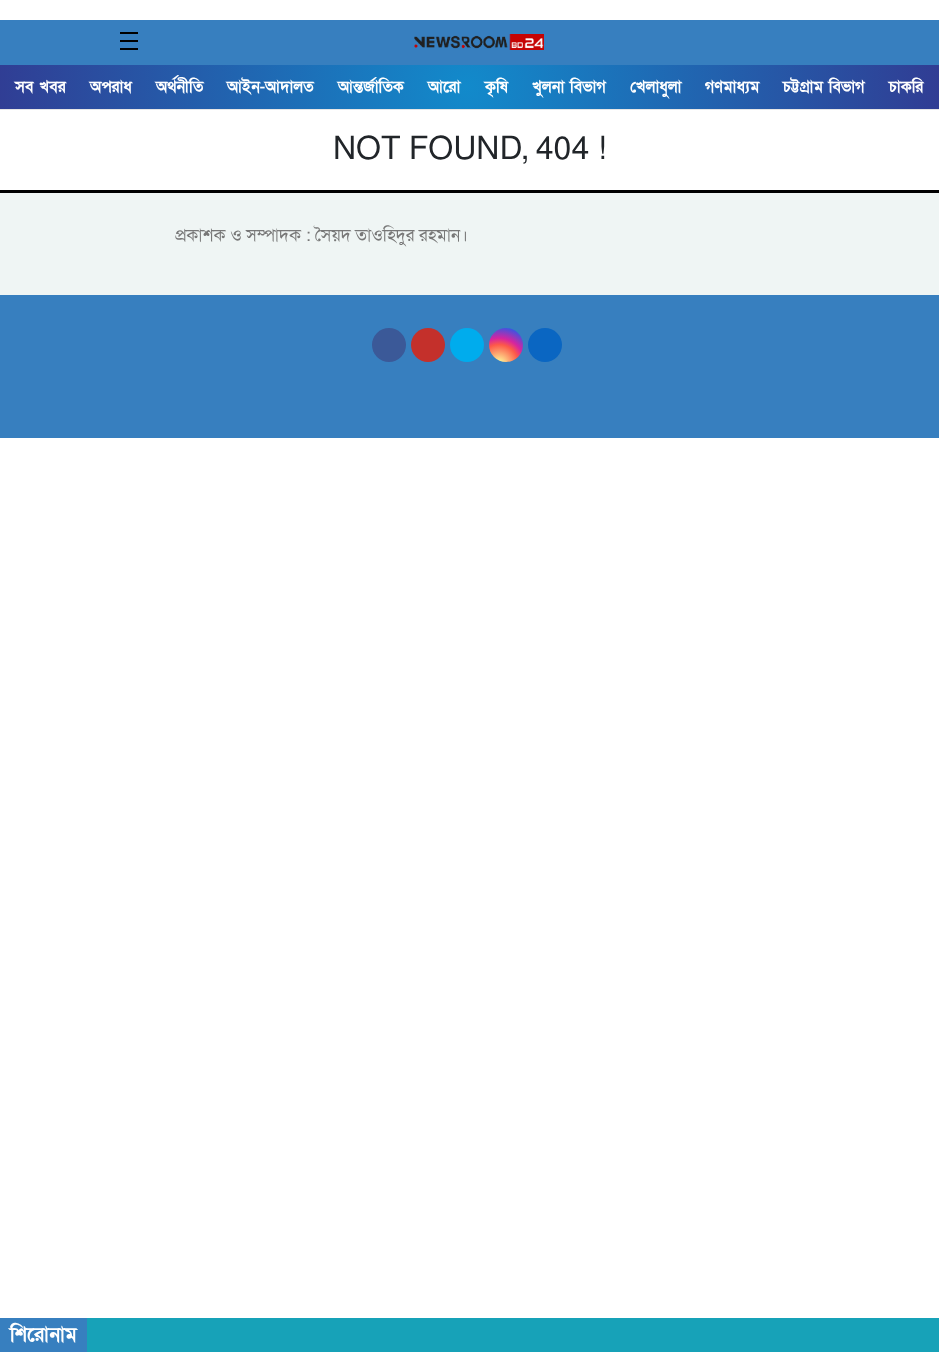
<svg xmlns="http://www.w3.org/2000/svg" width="939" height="1352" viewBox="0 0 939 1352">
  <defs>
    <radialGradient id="g1" gradientUnits="userSpaceOnUse" cx="467" cy="87" r="495"><stop offset="0" stop-color="#128acb"/><stop offset="1" stop-color="#323991"/></radialGradient>
    <radialGradient id="g2" gradientUnits="userSpaceOnUse" cx="499" cy="364" r="43"><stop offset="0" stop-color="#fdf497"/><stop offset="0.05" stop-color="#fdf497"/><stop offset="0.45" stop-color="#fd5949"/><stop offset="0.6" stop-color="#d6249f"/><stop offset="0.9" stop-color="#285aeb"/></radialGradient>
  </defs>
  <rect width="100%" height="100%" fill="#fff"/>
  <path d="M0 20h939v45H0z" fill="#377fbf"/>
  <path d="M120 32h18v2H120z" fill="#000"/>
  <path d="M120 40h18v2H120z" fill="#000"/>
  <path d="M120 48h18v2H120z" fill="#000"/>
  <image x="414" y="34" width="130" height="16" href="img/1.png"/>
  <path d="M0 109h939v1H0z" fill="#e6e6e6"/>
  <path d="M0 65h939v44H0z" fill="url(#g1)"/>
  <path d="M0 193h939v102H0z" fill="#eff5f4"/>
  <path d="M0 190h939v3H0z" fill="#000"/>
  <path d="M0 295h939v143H0z" fill="#377fbf"/>
  <circle cx="389" cy="345" r="17" fill="#3b5998"/>
  <circle cx="428" cy="345" r="17" fill="#c4302b"/>
  <circle cx="467" cy="345" r="17" fill="#00aced"/>
  <circle cx="506" cy="345" r="17" fill="url(#g2)"/>
  <circle cx="545" cy="345" r="17" fill="#0a66c2"/>
  <path d="M87 1318h852v34H87z" fill="#17a2b8"/>
  <path d="M0 1318h87v34H0z" fill="#377fbf"/>
  <g font-family="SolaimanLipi" font-size="16" font-weight="bold" fill="#fff">
    <text x="15" y="92">সব খবর</text>
    <text x="90" y="92">অপরাধ</text>
    <text x="156" y="92">অর্থনীতি</text>
    <text x="227" y="92">আইন-আদালত</text>
    <text x="338" y="92">আন্তর্জাতিক</text>
    <text x="428" y="92">আরো</text>
    <text x="485" y="92">কৃষি</text>
    <text x="532" y="92">খুলনা বিভাগ</text>
    <text x="630" y="92">খেলাধুলা</text>
    <text x="705" y="92">গণমাধ্যম</text>
    <text x="783" y="92">চট্টগ্রাম বিভাগ</text>
    <text x="889" y="92">চাকরি</text>
  </g>
  <text x="333" y="159" font-family="SolaimanLipi" font-size="32" fill="#212529">NOT FOUND, 404 !</text>
  <text x="175" y="241" font-family="SolaimanLipi" font-size="17.6" fill="#777">প্রকাশক ও সম্পাদক : সৈয়দ তাওহিদুর রহমান।</text>
  <text x="10" y="1341" font-family="SolaimanLipi" font-size="20" font-weight="bold" fill="#fff">শিরোনাম</text>
</svg>
